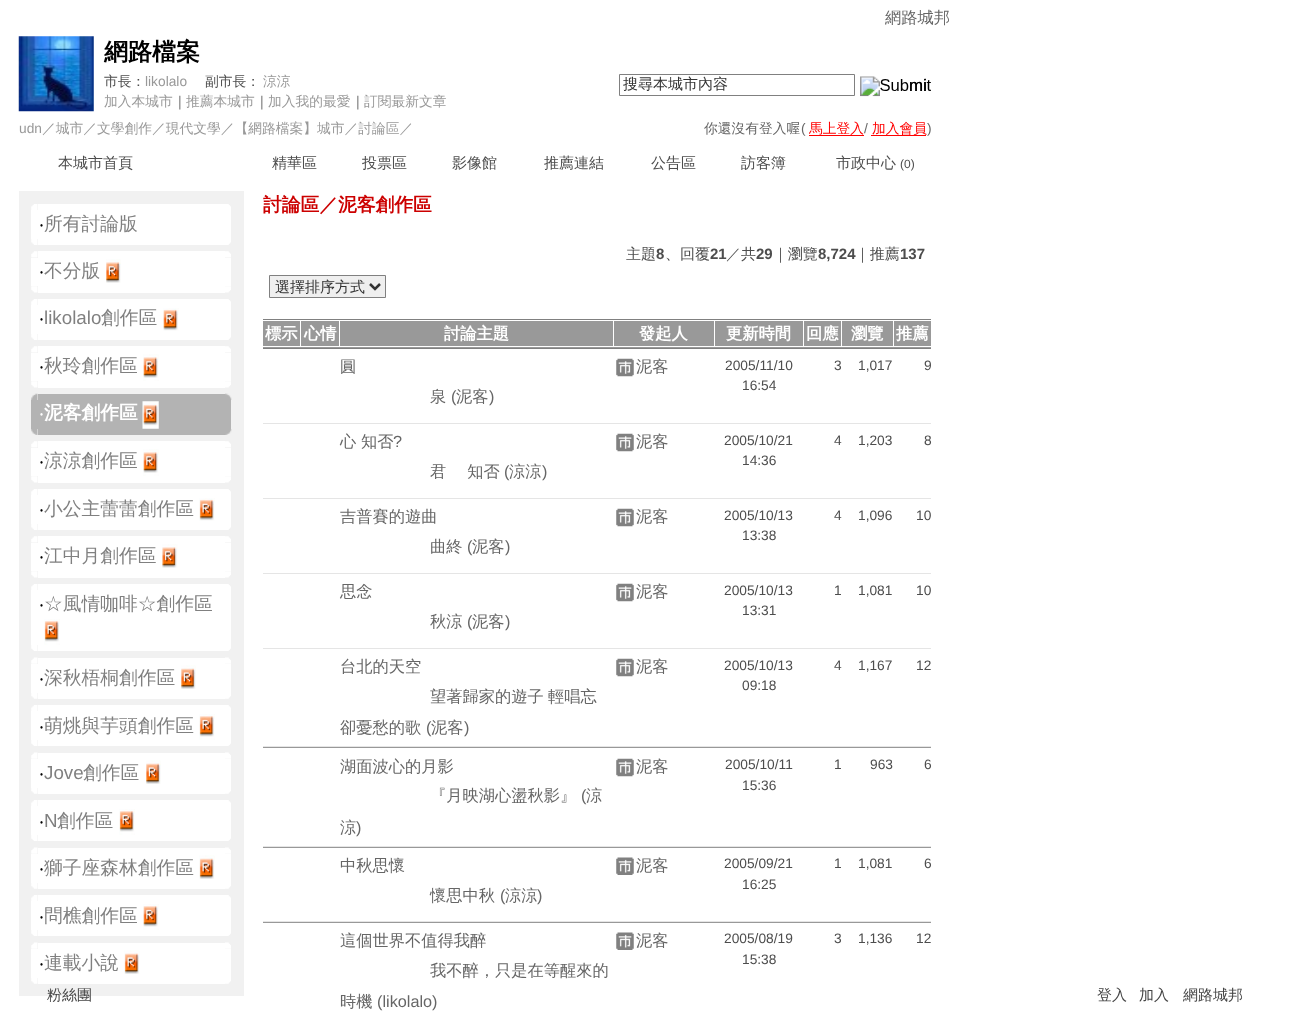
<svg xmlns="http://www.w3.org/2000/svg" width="1291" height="1013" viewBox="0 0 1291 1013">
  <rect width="100%" height="100%" fill="#fff"/>
  <image x="18" y="36" width="76" height="76" href="img/1.png"/>
  <path d="M619.5 74.5h235v21H619.5z" fill="none" stroke="#808080"/>
  <image x="860" y="76" width="71" height="21" href="img/2.png"/>
  <path d="M809 135h55v1H809z" fill="#f00"/>
  <path d="M871 135h55v1H871z" fill="#f00"/>
  <path d="M19 191h225v805H19z" fill="#f1f1f1"/>
  <image x="31" y="204" width="7" height="6" href="img/3.png"/>
  <path d="M38 204h187v6H38z" fill="#fff"/>
  <image x="225" y="204" width="6" height="6" href="img/4.png"/>
  <path d="M31 210h200v29H31z" fill="#fff"/>
  <image x="31" y="239" width="7" height="6" href="img/5.png"/>
  <path d="M38 239h187v6H38z" fill="#fff"/>
  <image x="225" y="239" width="6" height="6" href="img/6.png"/>
  <image x="31" y="251" width="7" height="7" href="img/7.png"/>
  <path d="M38 251h187v7H38z" fill="#fff"/>
  <image x="225" y="251" width="6" height="7" href="img/8.png"/>
  <path d="M31 258h200v28H31z" fill="#fff"/>
  <image x="106" y="259" width="15" height="24" href="img/9.png"/>
  <image x="31" y="286" width="7" height="7" href="img/10.png"/>
  <path d="M38 286h187v7H38z" fill="#fff"/>
  <image x="225" y="286" width="6" height="7" href="img/11.png"/>
  <image x="31" y="299" width="7" height="6" href="img/3.png"/>
  <path d="M38 299h187v6H38z" fill="#fff"/>
  <image x="225" y="299" width="6" height="6" href="img/4.png"/>
  <path d="M31 305h200v29H31z" fill="#fff"/>
  <image x="163" y="308" width="16" height="23" href="img/12.png"/>
  <image x="31" y="334" width="7" height="6" href="img/5.png"/>
  <path d="M38 334h187v6H38z" fill="#fff"/>
  <image x="225" y="334" width="6" height="6" href="img/6.png"/>
  <image x="31" y="346" width="7" height="7" href="img/7.png"/>
  <path d="M38 346h187v7H38z" fill="#fff"/>
  <image x="225" y="346" width="6" height="7" href="img/8.png"/>
  <path d="M31 353h200v28H31z" fill="#fff"/>
  <image x="143" y="354" width="16" height="27" href="img/13.png"/>
  <image x="31" y="381" width="7" height="7" href="img/10.png"/>
  <path d="M38 381h187v7H38z" fill="#fff"/>
  <image x="225" y="381" width="6" height="7" href="img/11.png"/>
  <image x="31" y="393" width="7" height="7" href="img/14.png"/>
  <path d="M38 394h187v6H38z" fill="#b3b3b3"/>
  <image x="225" y="393" width="7" height="7" href="img/15.png"/>
  <path d="M31 400h200v29H31z" fill="#b3b3b3"/>
  <image x="142" y="401" width="17" height="28" href="img/16.png"/>
  <image x="31" y="429" width="7" height="6" href="img/17.png"/>
  <path d="M38 429h187v6H38z" fill="#b3b3b3"/>
  <image x="225" y="429" width="7" height="6" href="img/18.png"/>
  <image x="31" y="441" width="7" height="7" href="img/7.png"/>
  <path d="M38 441h187v7H38z" fill="#fff"/>
  <image x="225" y="441" width="6" height="7" href="img/8.png"/>
  <path d="M31 448h200v28H31z" fill="#fff"/>
  <image x="143" y="449" width="16" height="27" href="img/13.png"/>
  <image x="31" y="476" width="7" height="7" href="img/10.png"/>
  <path d="M38 476h187v7H38z" fill="#fff"/>
  <image x="225" y="476" width="6" height="7" href="img/11.png"/>
  <image x="31" y="489" width="7" height="6" href="img/3.png"/>
  <path d="M38 489h187v6H38z" fill="#fff"/>
  <image x="225" y="489" width="6" height="6" href="img/4.png"/>
  <path d="M31 495h200v29H31z" fill="#fff"/>
  <image x="199" y="498" width="16" height="23" href="img/19.png"/>
  <image x="31" y="524" width="7" height="6" href="img/5.png"/>
  <path d="M38 524h187v6H38z" fill="#fff"/>
  <image x="225" y="524" width="6" height="6" href="img/6.png"/>
  <image x="31" y="536" width="7" height="7" href="img/7.png"/>
  <path d="M38 536h187v7H38z" fill="#fff"/>
  <image x="225" y="536" width="6" height="7" href="img/8.png"/>
  <path d="M31 543h200v28H31z" fill="#fff"/>
  <image x="162" y="544" width="16" height="24" href="img/20.png"/>
  <image x="31" y="571" width="7" height="7" href="img/10.png"/>
  <path d="M38 571h187v7H38z" fill="#fff"/>
  <image x="225" y="571" width="6" height="7" href="img/11.png"/>
  <image x="31" y="584" width="7" height="6" href="img/3.png"/>
  <path d="M38 584h187v6H38z" fill="#fff"/>
  <image x="225" y="584" width="6" height="6" href="img/4.png"/>
  <path d="M31 590h200v55H31z" fill="#fff"/>
  <image x="44" y="619" width="16" height="26" href="img/21.png"/>
  <image x="31" y="645" width="7" height="6" href="img/22.png"/>
  <path d="M38 645h187v6H38z" fill="#fff"/>
  <image x="225" y="645" width="6" height="6" href="img/23.png"/>
  <image x="31" y="657" width="7" height="7" href="img/24.png"/>
  <path d="M38 658h187v6H38z" fill="#fff"/>
  <image x="225" y="657" width="6" height="7" href="img/25.png"/>
  <path d="M31 664h200v29H31z" fill="#fff"/>
  <image x="181" y="665" width="15" height="24" href="img/26.png"/>
  <image x="31" y="693" width="7" height="6" href="img/27.png"/>
  <path d="M38 693h187v6H38z" fill="#fff"/>
  <image x="225" y="693" width="6" height="6" href="img/28.png"/>
  <image x="31" y="705" width="7" height="6" href="img/29.png"/>
  <path d="M38 705h187v6H38z" fill="#fff"/>
  <image x="225" y="705" width="6" height="6" href="img/30.png"/>
  <path d="M31 711h200v29H31z" fill="#fff"/>
  <image x="199" y="714" width="16" height="26" href="img/21.png"/>
  <image x="31" y="740" width="7" height="6" href="img/22.png"/>
  <path d="M38 740h187v6H38z" fill="#fff"/>
  <image x="225" y="740" width="6" height="6" href="img/23.png"/>
  <image x="31" y="752" width="7" height="7" href="img/24.png"/>
  <path d="M38 753h187v6H38z" fill="#fff"/>
  <image x="225" y="752" width="6" height="7" href="img/25.png"/>
  <path d="M31 759h200v29H31z" fill="#fff"/>
  <image x="146" y="760" width="15" height="24" href="img/26.png"/>
  <image x="31" y="788" width="7" height="6" href="img/27.png"/>
  <path d="M38 788h187v6H38z" fill="#fff"/>
  <image x="225" y="788" width="6" height="6" href="img/28.png"/>
  <image x="31" y="800" width="7" height="6" href="img/29.png"/>
  <path d="M38 800h187v6H38z" fill="#fff"/>
  <image x="225" y="800" width="6" height="6" href="img/30.png"/>
  <path d="M31 806h200v29H31z" fill="#fff"/>
  <image x="119" y="809" width="16" height="26" href="img/31.png"/>
  <image x="31" y="835" width="7" height="6" href="img/22.png"/>
  <path d="M38 835h187v6H38z" fill="#fff"/>
  <image x="225" y="835" width="6" height="6" href="img/23.png"/>
  <image x="31" y="847" width="7" height="7" href="img/24.png"/>
  <path d="M38 848h187v6H38z" fill="#fff"/>
  <image x="225" y="847" width="6" height="7" href="img/25.png"/>
  <path d="M31 854h200v29H31z" fill="#fff"/>
  <image x="199" y="855" width="16" height="24" href="img/32.png"/>
  <image x="31" y="883" width="7" height="6" href="img/27.png"/>
  <path d="M38 883h187v6H38z" fill="#fff"/>
  <image x="225" y="883" width="6" height="6" href="img/28.png"/>
  <image x="31" y="895" width="7" height="6" href="img/29.png"/>
  <path d="M38 895h187v6H38z" fill="#fff"/>
  <image x="225" y="895" width="6" height="6" href="img/30.png"/>
  <path d="M31 901h200v29H31z" fill="#fff"/>
  <image x="143" y="904" width="16" height="26" href="img/33.png"/>
  <image x="31" y="930" width="7" height="6" href="img/22.png"/>
  <path d="M38 930h187v6H38z" fill="#fff"/>
  <image x="225" y="930" width="6" height="6" href="img/23.png"/>
  <image x="31" y="942" width="7" height="7" href="img/24.png"/>
  <path d="M38 943h187v6H38z" fill="#fff"/>
  <image x="225" y="942" width="6" height="7" href="img/25.png"/>
  <path d="M31 949h200v29H31z" fill="#fff"/>
  <image x="124" y="950" width="16" height="24" href="img/34.png"/>
  <image x="31" y="978" width="7" height="6" href="img/27.png"/>
  <path d="M38 978h187v6H38z" fill="#fff"/>
  <image x="225" y="978" width="6" height="6" href="img/28.png"/>
  <path d="M269.5 275.5h116v22H269.5z" fill="#efefef" stroke="#808080"/>
  <path d="M370 284L375 289L380 284" fill="none" stroke="#333" stroke-width="2.5"/>
  <path d="M263 321h668v602H263z" fill="#999"/>
  <path d="M263 319h668v1H263z" fill="#808080"/>
  <path d="M300 321h1v25H300z" fill="#fff"/>
  <path d="M339 321h1v25H339z" fill="#fff"/>
  <path d="M613 321h1v25H613z" fill="#fff"/>
  <path d="M714 321h1v25H714z" fill="#fff"/>
  <path d="M803 321h1v25H803z" fill="#fff"/>
  <path d="M841 321h1v25H841z" fill="#fff"/>
  <path d="M893 321h1v25H893z" fill="#fff"/>
  <path d="M263 346h668v1H263z" fill="#fff"/>
  <path d="M263 348h668v1H263z" fill="#808080"/>
  <path d="M263 349h668v74H263z" fill="#fff"/>
  <image x="616" y="358" width="18" height="19" href="img/35.png"/>
  <path d="M263 423h668v1H263z" fill="#e5e5e5"/>
  <path d="M263 424h668v74H263z" fill="#fff"/>
  <image x="616" y="433" width="18" height="19" href="img/35.png"/>
  <path d="M263 498h668v1H263z" fill="#e5e5e5"/>
  <path d="M263 499h668v74H263z" fill="#fff"/>
  <image x="616" y="508" width="18" height="19" href="img/35.png"/>
  <path d="M263 573h668v1H263z" fill="#e5e5e5"/>
  <path d="M263 574h668v74H263z" fill="#fff"/>
  <image x="616" y="583" width="18" height="19" href="img/36.png"/>
  <path d="M263 648h668v1H263z" fill="#e5e5e5"/>
  <path d="M263 649h668v97H263z" fill="#fff"/>
  <image x="616" y="658" width="18" height="19" href="img/35.png"/>
  <path d="M263 746h668v1H263z" fill="#e5e5e5"/>
  <path d="M263 748h668v98H263z" fill="#fff"/>
  <image x="616" y="758" width="18" height="19" href="img/35.png"/>
  <path d="M263 846h668v1H263z" fill="#e5e5e5"/>
  <path d="M263 848h668v73H263z" fill="#fff"/>
  <image x="616" y="857" width="18" height="18" href="img/37.png"/>
  <path d="M263 921h668v1H263z" fill="#e5e5e5"/>
  <image x="616" y="932" width="18" height="18" href="img/37.png"/>
  <text x="885" y="23" font-family="WenQuanYi Zen Hei" font-size="16.25" font-weight="500" fill="#666">網路城邦</text>
  <text x="104" y="60" font-family="WenQuanYi Zen Hei" font-size="24" font-weight="bold" fill="#000">網路檔案</text>
  <text x="104" y="86" font-family="WenQuanYi Zen Hei" font-size="13.75" font-weight="500" fill="#4d4d4d">市長：</text>
  <text x="145" y="86" font-family="Liberation Sans" font-size="13.75" fill="#999">likolalo</text>
  <text x="205" y="86" font-family="WenQuanYi Zen Hei" font-size="13.75" font-weight="500" fill="#4d4d4d">副市長：</text>
  <g font-family="WenQuanYi Zen Hei" font-size="13.75" font-weight="500" fill="#999">
    <text x="263" y="86">涼涼</text>
    <text x="104" y="106">加入本城市</text>
  </g>
  <text x="173" y="106" font-family="WenQuanYi Zen Hei" font-size="13.75" font-weight="500" fill="#4d4d4d">｜</text>
  <text x="186" y="106" font-family="WenQuanYi Zen Hei" font-size="13.75" font-weight="500" fill="#999">推薦本城市</text>
  <text x="255" y="106" font-family="WenQuanYi Zen Hei" font-size="13.75" font-weight="500" fill="#4d4d4d">｜</text>
  <text x="268" y="106" font-family="WenQuanYi Zen Hei" font-size="13.75" font-weight="500" fill="#999">加入我的最愛</text>
  <text x="351" y="106" font-family="WenQuanYi Zen Hei" font-size="13.75" font-weight="500" fill="#4d4d4d">｜</text>
  <text x="364" y="106" font-family="WenQuanYi Zen Hei" font-size="13.75" font-weight="500" fill="#999">訂閱最新文章</text>
  <text x="623" y="89" font-family="WenQuanYi Zen Hei" font-size="15" font-weight="500" fill="#333">搜尋本城市內容</text>
  <text x="909" y="91" font-family="Liberation Sans" font-size="17" fill="#000">mi</text>
  <text x="19" y="133" font-family="Liberation Sans" font-size="13.75" fill="#999">udn</text>
  <text x="42" y="133" font-family="WenQuanYi Zen Hei" font-size="13.75" font-weight="500" fill="#999">／城市／文學創作／現代文學／【網路檔案】城市／討論區／</text>
  <text x="704" y="133" font-family="WenQuanYi Zen Hei" font-size="13.75" font-weight="500" fill="#666">你還沒有登入喔</text>
  <text x="801" y="133" font-family="Liberation Sans" font-size="13.75" fill="#666">(</text>
  <text x="809" y="133" font-family="WenQuanYi Zen Hei" font-size="13.75" font-weight="500" fill="#f00">馬上登入</text>
  <text x="864" y="133" font-family="Liberation Sans" font-size="13.75" fill="#666">/</text>
  <text x="872" y="133" font-family="WenQuanYi Zen Hei" font-size="13.75" font-weight="500" fill="#f00">加入會員</text>
  <text x="927" y="133" font-family="Liberation Sans" font-size="13.75" fill="#666">)</text>
  <g font-family="WenQuanYi Zen Hei" font-size="15" font-weight="500" fill="#4d4d4d">
    <text x="58" y="168">本城市首頁</text>
    <text x="272" y="168">精華區</text>
    <text x="362" y="168">投票區</text>
    <text x="452" y="168">影像館</text>
    <text x="544" y="168">推薦連結</text>
    <text x="651" y="168">公告區</text>
    <text x="741" y="168">訪客簿</text>
    <text x="836" y="168">市政中心</text>
  </g>
  <text x="900" y="168" font-family="Liberation Sans" font-size="12" fill="#4d4d4d">(0)</text>
  <text x="39" y="230" font-family="Noto Sans" font-size="18.75" fill="#000">‧</text>
  <text x="44" y="230" font-family="WenQuanYi Zen Hei" font-size="18.75" font-weight="500" fill="#808080">所有討論版</text>
  <text x="39" y="277" font-family="Noto Sans" font-size="18.75" fill="#000">‧</text>
  <text x="44" y="277" font-family="WenQuanYi Zen Hei" font-size="18.75" font-weight="500" fill="#808080">不分版</text>
  <text x="39" y="324" font-family="Noto Sans" font-size="18.75" fill="#000">‧</text>
  <text x="44" y="324" font-family="Liberation Sans" font-size="18.75" fill="#808080">likolalo</text>
  <text x="101" y="324" font-family="WenQuanYi Zen Hei" font-size="18.75" font-weight="500" fill="#808080">創作區</text>
  <text x="39" y="372" font-family="Noto Sans" font-size="18.75" fill="#000">‧</text>
  <text x="44" y="372" font-family="WenQuanYi Zen Hei" font-size="18.75" font-weight="500" fill="#808080">秋玲創作區</text>
  <text x="39" y="419" font-family="Noto Sans" font-size="18.75" fill="#fff">‧</text>
  <text x="44" y="419" font-family="WenQuanYi Zen Hei" font-size="18.75" font-weight="bold" fill="#fff">泥客創作區</text>
  <text x="39" y="467" font-family="Noto Sans" font-size="18.75" fill="#000">‧</text>
  <text x="44" y="467" font-family="WenQuanYi Zen Hei" font-size="18.75" font-weight="500" fill="#808080">涼涼創作區</text>
  <text x="39" y="515" font-family="Noto Sans" font-size="18.75" fill="#000">‧</text>
  <text x="44" y="515" font-family="WenQuanYi Zen Hei" font-size="18.75" font-weight="500" fill="#808080">小公主蕾蕾創作區</text>
  <text x="39" y="562" font-family="Noto Sans" font-size="18.75" fill="#000">‧</text>
  <text x="44" y="562" font-family="WenQuanYi Zen Hei" font-size="18.75" font-weight="500" fill="#808080">江中月創作區</text>
  <text x="39" y="610" font-family="Noto Sans" font-size="18.75" fill="#000">‧</text>
  <text x="44" y="610" font-family="WenQuanYi Zen Hei" font-size="18.75" font-weight="500" fill="#808080">☆風情咖啡☆創作區</text>
  <text x="39" y="684" font-family="Noto Sans" font-size="18.75" fill="#000">‧</text>
  <text x="44" y="684" font-family="WenQuanYi Zen Hei" font-size="18.75" font-weight="500" fill="#808080">深秋梧桐創作區</text>
  <text x="39" y="732" font-family="Noto Sans" font-size="18.75" fill="#000">‧</text>
  <text x="44" y="732" font-family="WenQuanYi Zen Hei" font-size="18.75" font-weight="500" fill="#808080">萌烑與芋頭創作區</text>
  <text x="39" y="779" font-family="Noto Sans" font-size="18.75" fill="#000">‧</text>
  <text x="44" y="779" font-family="Liberation Sans" font-size="18.75" fill="#808080">Jove</text>
  <text x="83" y="779" font-family="WenQuanYi Zen Hei" font-size="18.75" font-weight="500" fill="#808080">創作區</text>
  <text x="39" y="827" font-family="Noto Sans" font-size="18.75" fill="#000">‧</text>
  <text x="44" y="827" font-family="Liberation Sans" font-size="18.75" fill="#808080">N</text>
  <text x="57" y="827" font-family="WenQuanYi Zen Hei" font-size="18.75" font-weight="500" fill="#808080">創作區</text>
  <text x="39" y="874" font-family="Noto Sans" font-size="18.75" fill="#000">‧</text>
  <text x="44" y="874" font-family="WenQuanYi Zen Hei" font-size="18.75" font-weight="500" fill="#808080">獅子座森林創作區</text>
  <text x="39" y="922" font-family="Noto Sans" font-size="18.75" fill="#000">‧</text>
  <text x="44" y="922" font-family="WenQuanYi Zen Hei" font-size="18.75" font-weight="500" fill="#808080">問樵創作區</text>
  <text x="39" y="969" font-family="Noto Sans" font-size="18.75" fill="#000">‧</text>
  <text x="44" y="969" font-family="WenQuanYi Zen Hei" font-size="18.75" font-weight="500" fill="#808080">連載小說</text>
  <text x="263" y="211" font-family="WenQuanYi Zen Hei" font-size="18.75" font-weight="bold" fill="#c00">討論區／泥客創作區</text>
  <text x="626" y="259" font-family="WenQuanYi Zen Hei" font-size="15" font-weight="500" fill="#4d4d4d">主題</text>
  <text x="656" y="259" font-family="Liberation Sans" font-size="15" font-weight="bold" fill="#4d4d4d">8</text>
  <text x="665" y="259" font-family="WenQuanYi Zen Hei" font-size="15" font-weight="500" fill="#4d4d4d">、回覆</text>
  <text x="710" y="259" font-family="Liberation Sans" font-size="15" font-weight="bold" fill="#4d4d4d">21</text>
  <text x="726" y="259" font-family="WenQuanYi Zen Hei" font-size="15" font-weight="500" fill="#4d4d4d">／共</text>
  <text x="756" y="259" font-family="Liberation Sans" font-size="15" font-weight="bold" fill="#4d4d4d">29</text>
  <text x="773" y="259" font-family="WenQuanYi Zen Hei" font-size="15" font-weight="500" fill="#4d4d4d">｜瀏覽</text>
  <text x="818" y="259" font-family="Liberation Sans" font-size="15" font-weight="bold" fill="#4d4d4d">8,724</text>
  <text x="855" y="259" font-family="WenQuanYi Zen Hei" font-size="15" font-weight="500" fill="#4d4d4d">｜推薦</text>
  <text x="900" y="259" font-family="Liberation Sans" font-size="15" font-weight="bold" fill="#4d4d4d">137</text>
  <text x="275" y="292" font-family="WenQuanYi Zen Hei" font-size="15" font-weight="500" fill="#333">選擇排序方式</text>
  <g font-family="WenQuanYi Zen Hei" font-size="16.25" font-weight="bold" fill="#fff">
    <text x="265" y="339">標示</text>
    <text x="304" y="339">心情</text>
    <text x="444" y="339">討論主題</text>
    <text x="639" y="339">發起人</text>
    <text x="726" y="339">更新時間</text>
    <text x="806" y="339">回應</text>
    <text x="851" y="339">瀏覽</text>
    <text x="896" y="339">推薦</text>
  </g>
  <g font-family="WenQuanYi Zen Hei" font-size="16.25" font-weight="500" fill="#666">
    <text x="340" y="372">圓</text>
    <text x="430" y="402">泉</text>
  </g>
  <text x="451" y="402" font-family="Liberation Sans" font-size="16.25" fill="#666">(</text>
  <text x="456" y="402" font-family="WenQuanYi Zen Hei" font-size="16.25" font-weight="500" fill="#666">泥客</text>
  <text x="489" y="402" font-family="Liberation Sans" font-size="16.25" fill="#666">)</text>
  <text x="636" y="372" font-family="WenQuanYi Zen Hei" font-size="16.25" font-weight="500" fill="#666">泥客</text>
  <g font-family="Liberation Sans" font-size="13.75" fill="#4d4d4d">
    <text x="725" y="370">2005/11/10</text>
    <text x="742" y="390">16:54</text>
    <text x="834" y="370">3</text>
    <text x="858" y="370">1,017</text>
    <text x="924" y="370">9</text>
  </g>
  <text x="340" y="447" font-family="WenQuanYi Zen Hei" font-size="16.25" font-weight="500" fill="#666">心 知否</text>
  <text x="393" y="447" font-family="Liberation Sans" font-size="16.25" fill="#666">?</text>
  <text x="430" y="477" font-family="WenQuanYi Zen Hei" font-size="16.25" font-weight="500" fill="#666">君　 知否</text>
  <text x="504" y="477" font-family="Liberation Sans" font-size="16.25" fill="#666">(</text>
  <text x="509" y="477" font-family="WenQuanYi Zen Hei" font-size="16.25" font-weight="500" fill="#666">涼涼</text>
  <text x="542" y="477" font-family="Liberation Sans" font-size="16.25" fill="#666">)</text>
  <text x="636" y="447" font-family="WenQuanYi Zen Hei" font-size="16.25" font-weight="500" fill="#666">泥客</text>
  <g font-family="Liberation Sans" font-size="13.75" fill="#4d4d4d">
    <text x="724" y="445">2005/10/21</text>
    <text x="742" y="465">14:36</text>
    <text x="834" y="445">4</text>
    <text x="858" y="445">1,203</text>
    <text x="924" y="445">8</text>
  </g>
  <g font-family="WenQuanYi Zen Hei" font-size="16.25" font-weight="500" fill="#666">
    <text x="340" y="522">吉普賽的遊曲</text>
    <text x="430" y="552">曲終</text>
  </g>
  <text x="467" y="552" font-family="Liberation Sans" font-size="16.25" fill="#666">(</text>
  <text x="472" y="552" font-family="WenQuanYi Zen Hei" font-size="16.25" font-weight="500" fill="#666">泥客</text>
  <text x="505" y="552" font-family="Liberation Sans" font-size="16.25" fill="#666">)</text>
  <text x="636" y="522" font-family="WenQuanYi Zen Hei" font-size="16.25" font-weight="500" fill="#666">泥客</text>
  <g font-family="Liberation Sans" font-size="13.75" fill="#4d4d4d">
    <text x="724" y="520">2005/10/13</text>
    <text x="742" y="540">13:38</text>
    <text x="834" y="520">4</text>
    <text x="858" y="520">1,096</text>
    <text x="916" y="520">10</text>
  </g>
  <g font-family="WenQuanYi Zen Hei" font-size="16.25" font-weight="500" fill="#666">
    <text x="340" y="597">思念</text>
    <text x="430" y="627">秋涼</text>
  </g>
  <text x="467" y="627" font-family="Liberation Sans" font-size="16.25" fill="#666">(</text>
  <text x="472" y="627" font-family="WenQuanYi Zen Hei" font-size="16.25" font-weight="500" fill="#666">泥客</text>
  <text x="505" y="627" font-family="Liberation Sans" font-size="16.25" fill="#666">)</text>
  <text x="636" y="597" font-family="WenQuanYi Zen Hei" font-size="16.25" font-weight="500" fill="#666">泥客</text>
  <g font-family="Liberation Sans" font-size="13.75" fill="#4d4d4d">
    <text x="724" y="595">2005/10/13</text>
    <text x="742" y="615">13:31</text>
    <text x="834" y="595">1</text>
    <text x="858" y="595">1,081</text>
    <text x="916" y="595">10</text>
  </g>
  <g font-family="WenQuanYi Zen Hei" font-size="16.25" font-weight="500" fill="#666">
    <text x="340" y="672">台北的天空</text>
    <text x="430" y="702">望著歸家的遊子</text>
    <text x="548" y="702">輕唱忘</text>
    <text x="340" y="733">卻憂愁的歌</text>
  </g>
  <text x="426" y="733" font-family="Liberation Sans" font-size="16.25" fill="#666">(</text>
  <text x="431" y="733" font-family="WenQuanYi Zen Hei" font-size="16.25" font-weight="500" fill="#666">泥客</text>
  <text x="464" y="733" font-family="Liberation Sans" font-size="16.25" fill="#666">)</text>
  <text x="636" y="672" font-family="WenQuanYi Zen Hei" font-size="16.25" font-weight="500" fill="#666">泥客</text>
  <g font-family="Liberation Sans" font-size="13.75" fill="#4d4d4d">
    <text x="724" y="670">2005/10/13</text>
    <text x="742" y="690">09:18</text>
    <text x="834" y="670">4</text>
    <text x="858" y="670">1,167</text>
    <text x="916" y="670">12</text>
  </g>
  <g font-family="WenQuanYi Zen Hei" font-size="16.25" font-weight="500" fill="#666">
    <text x="340" y="772">湖面波心的月影</text>
    <text x="430" y="801">『月映湖心盪秋影』</text>
  </g>
  <text x="581" y="801" font-family="Liberation Sans" font-size="16.25" fill="#666">(</text>
  <g font-family="WenQuanYi Zen Hei" font-size="16.25" font-weight="500" fill="#666">
    <text x="586" y="801">涼</text>
    <text x="340" y="833">涼</text>
  </g>
  <text x="356" y="833" font-family="Liberation Sans" font-size="16.25" fill="#666">)</text>
  <text x="636" y="772" font-family="WenQuanYi Zen Hei" font-size="16.25" font-weight="500" fill="#666">泥客</text>
  <g font-family="Liberation Sans" font-size="13.75" fill="#4d4d4d">
    <text x="725" y="769">2005/10/11</text>
    <text x="742" y="790">15:36</text>
    <text x="834" y="769">1</text>
    <text x="870" y="769">963</text>
    <text x="924" y="769">6</text>
  </g>
  <g font-family="WenQuanYi Zen Hei" font-size="16.25" font-weight="500" fill="#666">
    <text x="340" y="871">中秋思懷</text>
    <text x="430" y="901">懷思中秋</text>
  </g>
  <text x="500" y="901" font-family="Liberation Sans" font-size="16.25" fill="#666">(</text>
  <text x="505" y="901" font-family="WenQuanYi Zen Hei" font-size="16.25" font-weight="500" fill="#666">涼涼</text>
  <text x="537" y="901" font-family="Liberation Sans" font-size="16.25" fill="#666">)</text>
  <text x="636" y="871" font-family="WenQuanYi Zen Hei" font-size="16.25" font-weight="500" fill="#666">泥客</text>
  <g font-family="Liberation Sans" font-size="13.75" fill="#4d4d4d">
    <text x="724" y="868">2005/09/21</text>
    <text x="742" y="889">16:25</text>
    <text x="834" y="868">1</text>
    <text x="858" y="868">1,081</text>
    <text x="924" y="868">6</text>
  </g>
  <g font-family="WenQuanYi Zen Hei" font-size="16.25" font-weight="500" fill="#666">
    <text x="340" y="946">這個世界不值得我醉</text>
    <text x="430" y="976">我不醉，只是在等醒來的</text>
    <text x="340" y="1007">時機</text>
  </g>
  <text x="377" y="1007" font-family="Liberation Sans" font-size="16.25" fill="#666">(likolalo)</text>
  <text x="636" y="946" font-family="WenQuanYi Zen Hei" font-size="16.25" font-weight="500" fill="#666">泥客</text>
  <g font-family="Liberation Sans" font-size="13.75" fill="#4d4d4d">
    <text x="724" y="943">2005/08/19</text>
    <text x="742" y="964">15:38</text>
    <text x="834" y="943">3</text>
    <text x="858" y="943">1,136</text>
    <text x="916" y="943">12</text>
  </g>
  <g font-family="WenQuanYi Zen Hei" font-size="15" font-weight="500" fill="#444">
    <text x="47" y="1000">粉絲團</text>
    <text x="1097" y="1000">登入</text>
    <text x="1139" y="1000">加入</text>
    <text x="1183" y="1000">網路城邦</text>
  </g>
</svg>
